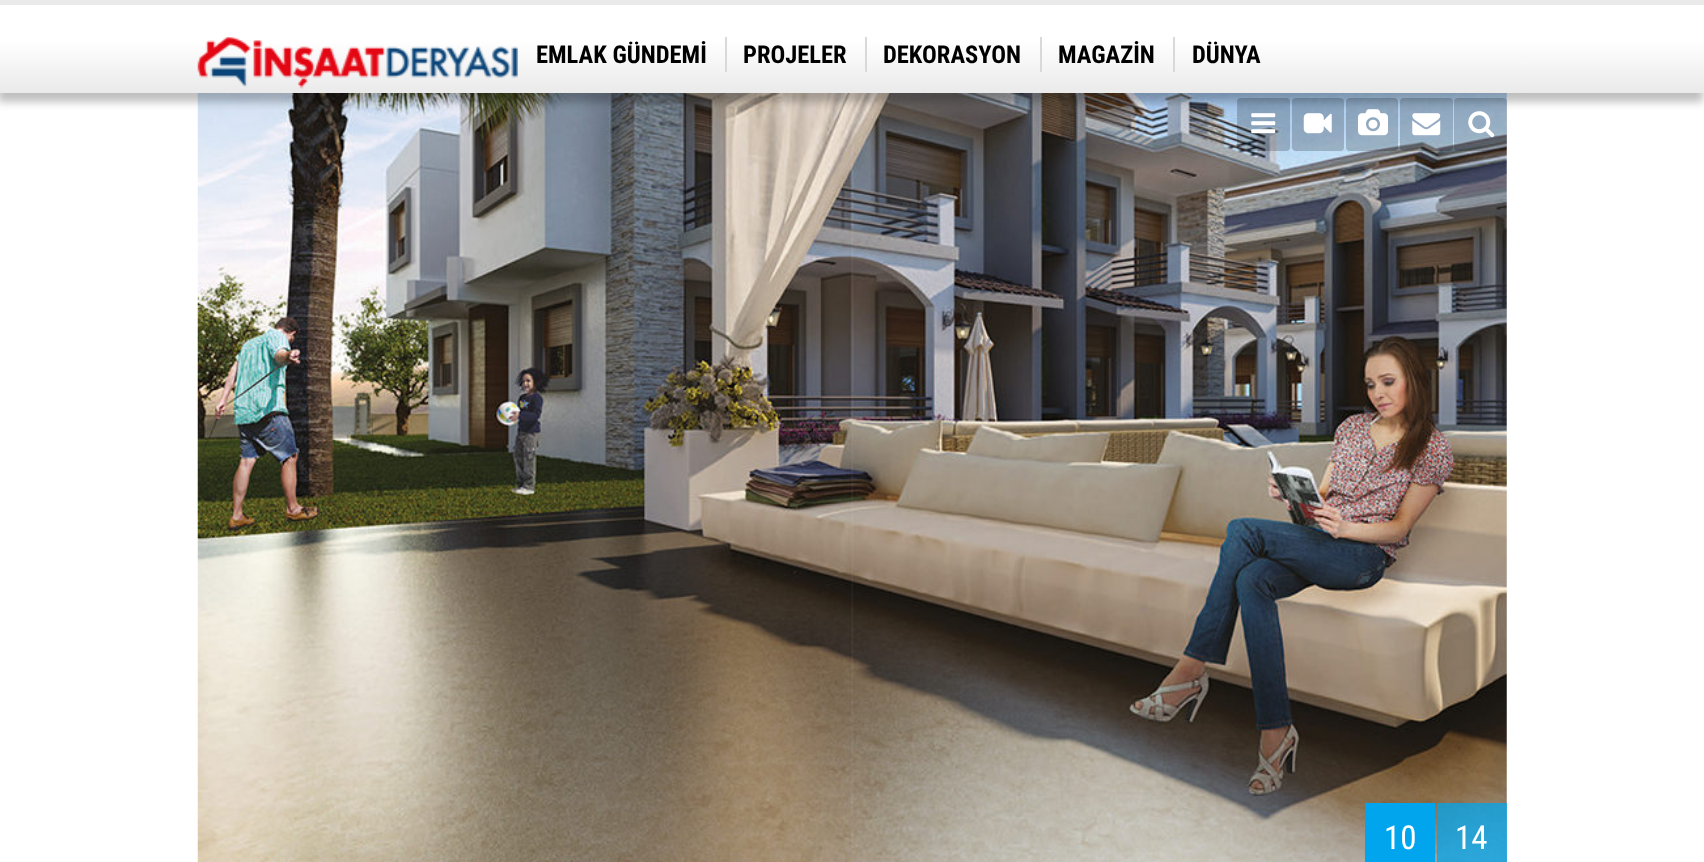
<svg xmlns="http://www.w3.org/2000/svg" width="1704" height="862" viewBox="0 0 1704 862">
  <defs>
    <linearGradient id="g1" gradientUnits="userSpaceOnUse" x1="852" y1="5.2" x2="852" y2="93"><stop offset="0.4" stop-color="#fff"/><stop offset="1" stop-color="#eaeaea"/></linearGradient>
  </defs>
  <rect width="100%" height="100%" fill="#fff"/>
  <image x="197" y="93" width="1310" height="769" href="img/7.png"/>
  <path d="M-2 9h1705v93H-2z" fill="#00000040" filter="blur(4.5px)"/>
  <path d="M0 5h1704v88H0z" fill="url(#g1)"/>
  <path d="M0 0h1704v5H0z" fill="#eaeaea"/>
  <image x="197" y="37" width="321" height="52" href="img/1.png"/>
  <path d="M725 37h2v35H725z" fill="#d9d9d9"/>
  <path d="M865 37h2v35H865z" fill="#d9d9d9"/>
  <path d="M1040 37h2v35H1040z" fill="#d9d9d9"/>
  <path d="M1173 37h2v35H1173z" fill="#d9d9d9"/>
  <rect x="1237" y="98" width="53" height="53" rx="4" fill="#00000033"/>
  <image x="1251" y="113" width="25" height="21" href="img/2.png"/>
  <rect x="1292" y="98" width="52" height="53" rx="4" fill="#00000033"/>
  <image x="1303" y="113" width="29" height="21" href="img/3.png"/>
  <rect x="1346" y="98" width="52" height="53" rx="4" fill="#00000033"/>
  <image x="1358" y="109" width="30" height="27" href="img/4.png"/>
  <rect x="1400" y="98" width="53" height="53" rx="4" fill="#00000033"/>
  <image x="1412" y="113" width="29" height="23" href="img/5.png"/>
  <rect x="1454" y="98" width="53" height="53" rx="4" fill="#00000033"/>
  <image x="1468" y="111" width="27" height="27" href="img/6.png"/>
  <path d="M1365 803h70v59H1365z" fill="#00a5ed"/>
  <path d="M1437 803h70v59H1437z" fill="#00a5edbf"/>
  <g font-family="Roboto Condensed" font-size="24.5" font-weight="bold" fill="#000">
    <text x="536" y="63">EMLAK GÜNDEMİ</text>
    <text x="743" y="63">PROJELER</text>
    <text x="883" y="63">DEKORASYON</text>
    <text x="1058" y="63">MAGAZİN</text>
    <text x="1192" y="63">DÜNYA</text>
  </g>
  <g font-family="Roboto Condensed" font-size="33" fill="#fff">
    <text x="1384" y="849">10</text>
    <text x="1455" y="849">14</text>
  </g>
</svg>
